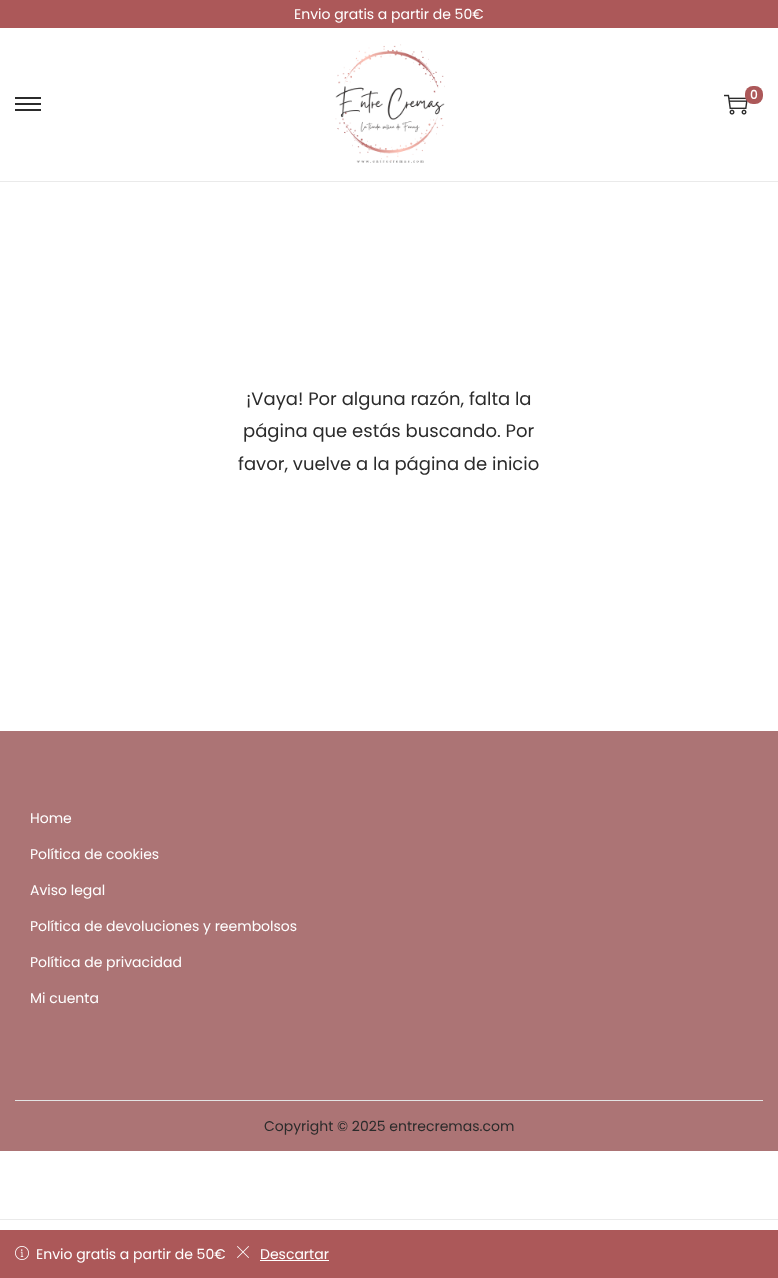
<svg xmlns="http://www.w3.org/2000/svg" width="778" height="1278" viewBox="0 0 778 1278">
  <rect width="100%" height="100%" fill="#fff"/>
  <path d="M0 0h778v28H0z" fill="#ac5859"/>
  <path d="M0 181h778v1H0z" fill="#eaeaea"/>
  <image x="335" y="44" width="110" height="119" href="img/1.png"/>
  <image x="724" y="94" width="24" height="21" href="img/2.png"/>
  <rect x="745" y="86" width="18" height="18" rx="8" fill="#ac5859"/>
  <path d="M15 103h26v2H15z" fill="#2b2b2b"/>
  <path d="M15 97h26v2H15z" fill="#2b2b2b"/>
  <path d="M15 109h26v2H15z" fill="#2b2b2b"/>
  <path d="M0 731h778v420H0z" fill="#ac7475"/>
  <path d="M15 1100h748v1H15z" fill="#e3e3e3"/>
  <path d="M0 1219h778v1H0z" fill="#eaeaea"/>
  <path d="M0 1230h778v48H0z" fill="#ac5859"/>
  <image x="15" y="1246" width="14" height="14" href="img/3.png"/>
  <image x="237" y="1246" width="12" height="12" href="img/4.png"/>
  <path d="M260 1260h69v1H260z" fill="#fff"/>
  <text x="294" y="19" font-family="Poppins" font-size="14" fill="#fff">Envio gratis a partir de 50€</text>
  <text x="750" y="99" font-family="Poppins" font-size="12" font-weight="bold" fill="#fff">0</text>
  <g font-family="Poppins" font-size="18" fill="#2b2b2b">
    <text x="246" y="405">¡Vaya! Por alguna razón, falta la</text>
    <text x="243" y="437">página que estás buscando. Por</text>
    <text x="238" y="470">favor, vuelve a la página de inicio</text>
  </g>
  <g font-family="Poppins" font-size="14" fill="#fff">
    <text x="30" y="823">Home</text>
    <text x="30" y="859">Política de cookies</text>
    <text x="30" y="895">Aviso legal</text>
    <text x="30" y="931">Política de devoluciones y reembolsos</text>
    <text x="30" y="967">Política de privacidad</text>
    <text x="30" y="1003">Mi cuenta</text>
  </g>
  <text x="264" y="1131" font-family="Poppins" font-size="14" fill="#2b2b2b">Copyright © 2025 entrecremas.com</text>
  <g font-family="Poppins" font-size="14" fill="#fff">
    <text x="36" y="1259">Envio gratis a partir de 50€</text>
    <text x="260" y="1259">Descartar</text>
  </g>
</svg>
